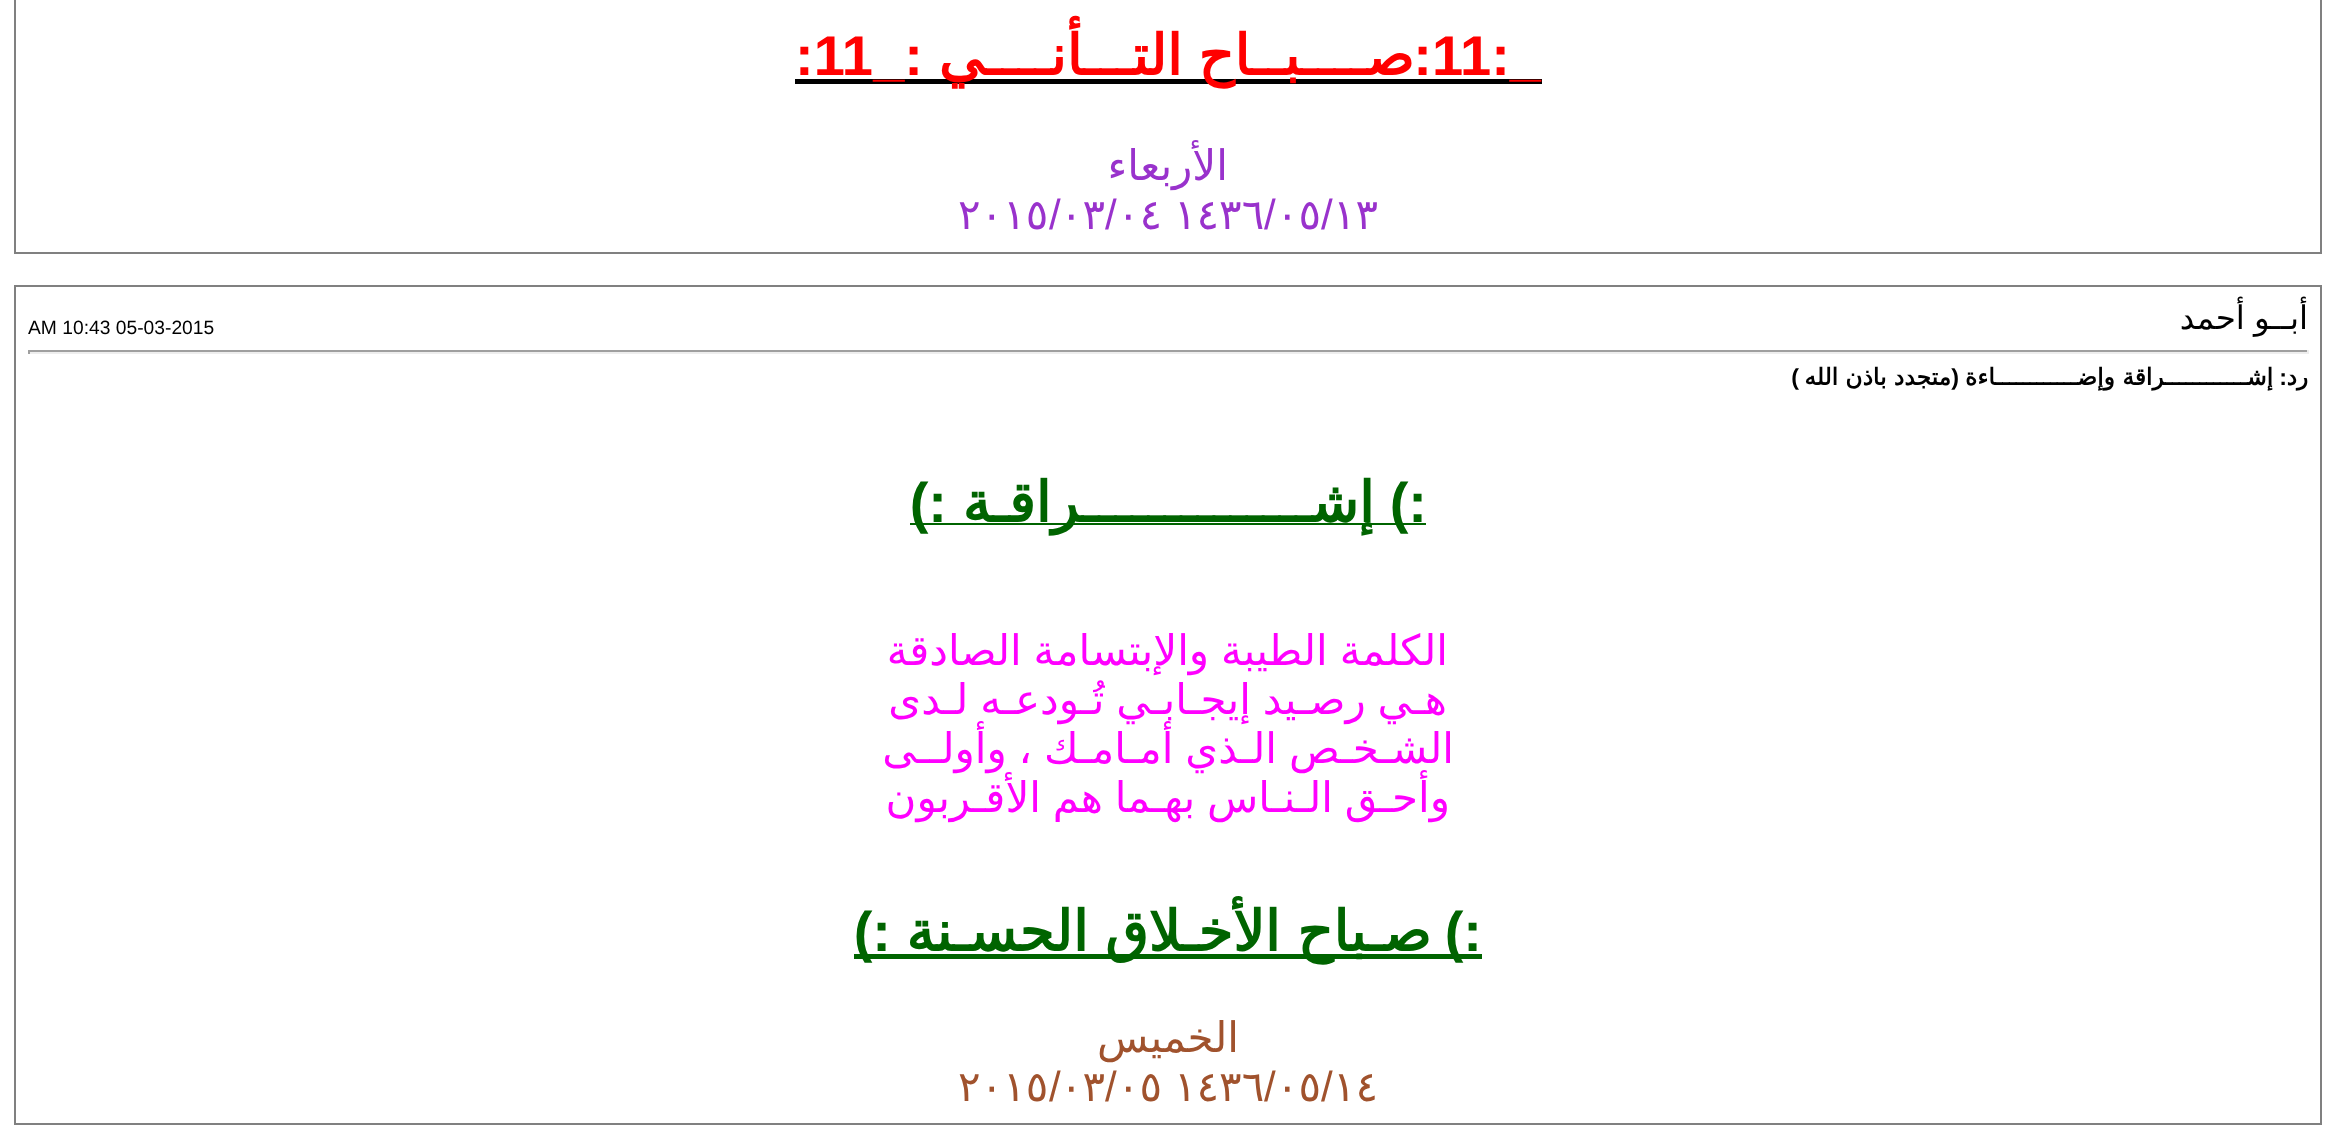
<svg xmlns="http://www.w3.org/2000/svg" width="2336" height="1135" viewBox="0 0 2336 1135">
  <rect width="100%" height="100%" fill="#fff"/>
  <path d="M15 -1h2306v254H15z" fill="none" stroke="#808080" stroke-width="2"/>
  <path d="M795 79h78v5H795z" fill="#000"/>
  <path d="M873 79h669v5H873z" fill="#000"/>
  <path d="M15 286h2306v838H15z" fill="none" stroke="#808080" stroke-width="2"/>
  <path d="M28 350h2280v2H28z" fill="#9f9f9f"/>
  <path d="M2307 350h2v4H2307z" fill="#eee"/>
  <path d="M28 352h2280v2H28z" fill="#eee"/>
  <path d="M28 350h2v4H28z" fill="#9f9f9f"/>
  <path d="M910 523h516v2H910z" fill="#006400"/>
  <path d="M854 954h628v5H854z" fill="#006400"/>
  <text x="1432" y="75" font-family="Liberation Sans" font-size="56" font-weight="bold" fill="#f00">11:_</text>
  <text x="1432" y="75" font-family="Liberation Sans" font-size="56" font-weight="bold" direction="rtl" fill="#f00">:</text>
  <g font-family="DejaVu Sans" font-size="56" font-weight="bold" direction="rtl" fill="#f00">
    <text x="1414" y="75">صــــبــاح</text>
    <text x="1182" y="75">التـــأنــــي</text>
  </g>
  <text x="923" y="75" font-family="Liberation Sans" font-size="56" font-weight="bold" direction="rtl" fill="#f00">:_</text>
  <text x="795" y="75" font-family="Liberation Sans" font-size="56" font-weight="bold" fill="#f00">:11</text>
  <text x="1228" y="180" font-family="DejaVu Sans" font-size="42" direction="rtl" fill="#9932cc">الأربعاء</text>
  <text x="1333" y="229" font-family="DejaVu Sans" font-size="42" fill="#9932cc">١٣</text>
  <text x="1321" y="229" font-family="Liberation Sans" font-size="42" fill="#9932cc">/</text>
  <text x="1276" y="229" font-family="DejaVu Sans" font-size="42" fill="#9932cc">٠٥</text>
  <text x="1264" y="229" font-family="Liberation Sans" font-size="42" fill="#9932cc">/</text>
  <g font-family="DejaVu Sans" font-size="42" fill="#9932cc">
    <text x="1174" y="229">١٤٣٦</text>
    <text x="1117" y="229">٠٤</text>
  </g>
  <text x="1105" y="229" font-family="Liberation Sans" font-size="42" fill="#9932cc">/</text>
  <text x="1060" y="229" font-family="DejaVu Sans" font-size="42" fill="#9932cc">٠٣</text>
  <text x="1049" y="229" font-family="Liberation Sans" font-size="42" fill="#9932cc">/</text>
  <text x="958" y="229" font-family="DejaVu Sans" font-size="42" fill="#9932cc">٢٠١٥</text>
  <text x="2308" y="329" word-spacing="-1" font-family="DejaVu Sans" font-size="32.5" direction="rtl" fill="#000">أبــو أحمد</text>
  <text x="28" y="334" font-family="Liberation Sans" font-size="19.25" fill="#000">AM 10:43 05-03-2015</text>
  <text x="2308" y="385" font-family="DejaVu Sans" font-size="23.3" font-weight="bold" direction="rtl" fill="#000">رد</text>
  <text x="2287" y="385" font-family="Liberation Sans" font-size="23.3" font-weight="bold" direction="rtl" fill="#000">:</text>
  <text x="2273" y="385" font-family="DejaVu Sans" font-size="23.3" font-weight="bold" direction="rtl" fill="#000">إشــــــــــــراقة وإضــــــــــــاءة</text>
  <text x="1959" y="385" font-family="Liberation Sans" font-size="23.3" font-weight="bold" direction="rtl" fill="#000">(</text>
  <text x="1951" y="385" font-family="DejaVu Sans" font-size="23.3" font-weight="bold" direction="rtl" fill="#000">متجدد باذن الله</text>
  <text x="1799" y="385" font-family="Liberation Sans" font-size="23.3" font-weight="bold" direction="rtl" fill="#000">)</text>
  <text x="1427" y="522" font-family="Liberation Sans" font-size="56" font-weight="bold" direction="rtl" fill="#006400">:)</text>
  <text x="1374" y="522" font-family="DejaVu Sans" font-size="56" font-weight="bold" direction="rtl" fill="#006400">إشــــــــــــــراقـة</text>
  <text x="947" y="522" font-family="Liberation Sans" font-size="56" font-weight="bold" direction="rtl" fill="#006400">:)</text>
  <g font-family="DejaVu Sans" font-size="42" direction="rtl" fill="#f0f">
    <text x="1448" y="665" word-spacing="-1.5">الكلمة الطيبة والإبتسامة الصادقة</text>
    <text x="1447" y="714" word-spacing="-1.5">هـي رصـيد إيجـابـي تُـودعـه لـدى</text>
    <text x="1454" y="763" word-spacing="-1.5">الشـخـص الـذي أمـامـك ، وأولــى</text>
    <text x="1450" y="812" word-spacing="-1.5">وأحـق الـنـاس بهـما هم الأقـربون</text>
  </g>
  <text x="1482" y="951" font-family="Liberation Sans" font-size="56" font-weight="bold" direction="rtl" fill="#006400">:)</text>
  <text x="1431" y="951" word-spacing="-1" font-family="DejaVu Sans" font-size="56" font-weight="bold" direction="rtl" fill="#006400">صـباح الأخـلاق الحسـنة</text>
  <text x="891" y="951" font-family="Liberation Sans" font-size="56" font-weight="bold" direction="rtl" fill="#006400">:)</text>
  <text x="1239" y="1052" font-family="DejaVu Sans" font-size="42" direction="rtl" fill="#a0522d">الخميس</text>
  <text x="1333" y="1101" font-family="DejaVu Sans" font-size="42" fill="#a0522d">١٤</text>
  <text x="1321" y="1101" font-family="Liberation Sans" font-size="42" fill="#a0522d">/</text>
  <text x="1276" y="1101" font-family="DejaVu Sans" font-size="42" fill="#a0522d">٠٥</text>
  <text x="1264" y="1101" font-family="Liberation Sans" font-size="42" fill="#a0522d">/</text>
  <g font-family="DejaVu Sans" font-size="42" fill="#a0522d">
    <text x="1174" y="1101">١٤٣٦</text>
    <text x="1117" y="1101">٠٥</text>
  </g>
  <text x="1105" y="1101" font-family="Liberation Sans" font-size="42" fill="#a0522d">/</text>
  <text x="1060" y="1101" font-family="DejaVu Sans" font-size="42" fill="#a0522d">٠٣</text>
  <text x="1049" y="1101" font-family="Liberation Sans" font-size="42" fill="#a0522d">/</text>
  <text x="958" y="1101" font-family="DejaVu Sans" font-size="42" fill="#a0522d">٢٠١٥</text>
</svg>
